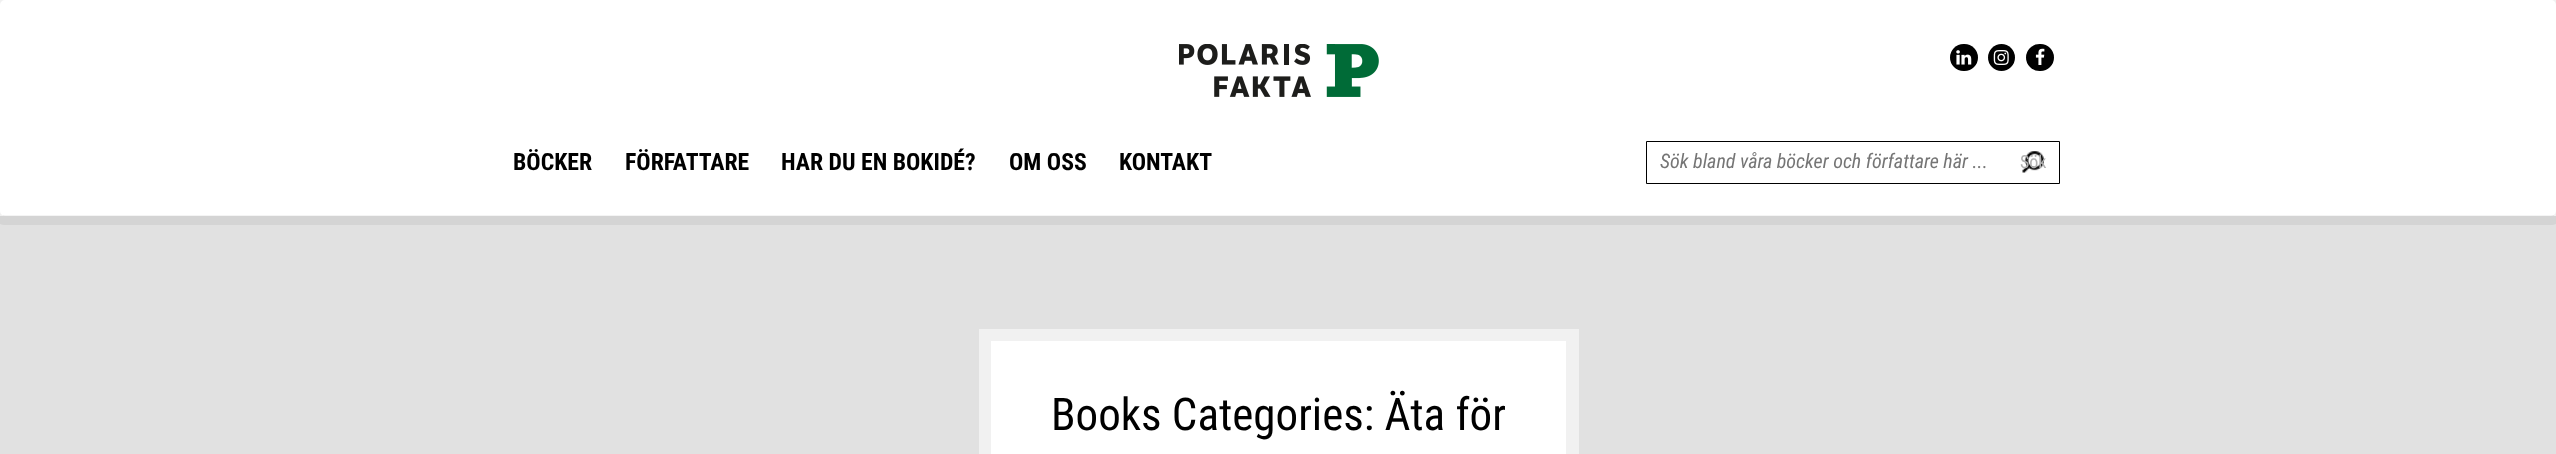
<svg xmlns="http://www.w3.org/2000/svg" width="2556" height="454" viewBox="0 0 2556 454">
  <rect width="100%" height="100%" fill="#fff"/>
  <path d="M0 216h2556v238H0z" fill="#e1e1e1"/>
  <rect x="-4.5" y="-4.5" width="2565" height="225" rx="9.5" fill="none" stroke="#28282812" stroke-width="9"/>
  <path d="M3 215h2551v1H3z" fill="#2828280d"/>
  <image x="1179" y="44" width="200" height="53" href="img/1.png"/>
  <rect x="1950" y="44" width="28" height="27" rx="13.5" fill="#000"/>
  <image x="1956" y="50" width="16" height="15" href="img/2.png"/>
  <circle cx="2001.5" cy="57.5" r="13.5" fill="#000"/>
  <image x="1993" y="50" width="16" height="15" href="img/3.png"/>
  <rect x="2026" y="44" width="28" height="27" rx="13.5" fill="#000"/>
  <image x="2035" y="48" width="10" height="17" href="img/4.png"/>
  <path d="M1646.5 141.5h413v42H1646.5z" fill="none" stroke="#000"/>
  <image x="2022" y="151" width="22" height="22" href="img/5.png"/>
  <path d="M985.5 335.5h587v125H985.5z" fill="none" stroke="#f1f1f1" stroke-width="13"/>
  <path d="M991 341h575v113H991z" fill="#fff"/>
  <g font-family="Roboto Condensed" font-size="23.75" font-weight="bold" fill="#000">
    <text x="513" y="170">BÖCKER</text>
    <text x="625" y="170">FÖRFATTARE</text>
    <text x="781" y="170">HAR DU EN BOKIDÉ?</text>
    <text x="1009" y="170">OM OSS</text>
    <text x="1119" y="170">KONTAKT</text>
  </g>
  <text x="1660" y="168" font-family="Roboto Condensed" font-size="20" font-style="italic" fill="#757575">Sök bland våra böcker och författare här ...</text>
  <text x="2020" y="168" font-family="Roboto Condensed" font-size="18" fill="#afafaf">Sök</text>
  <text x="1051" y="430" font-family="Roboto Condensed" font-size="45" fill="#000">Books Categories: Äta för</text>
</svg>
